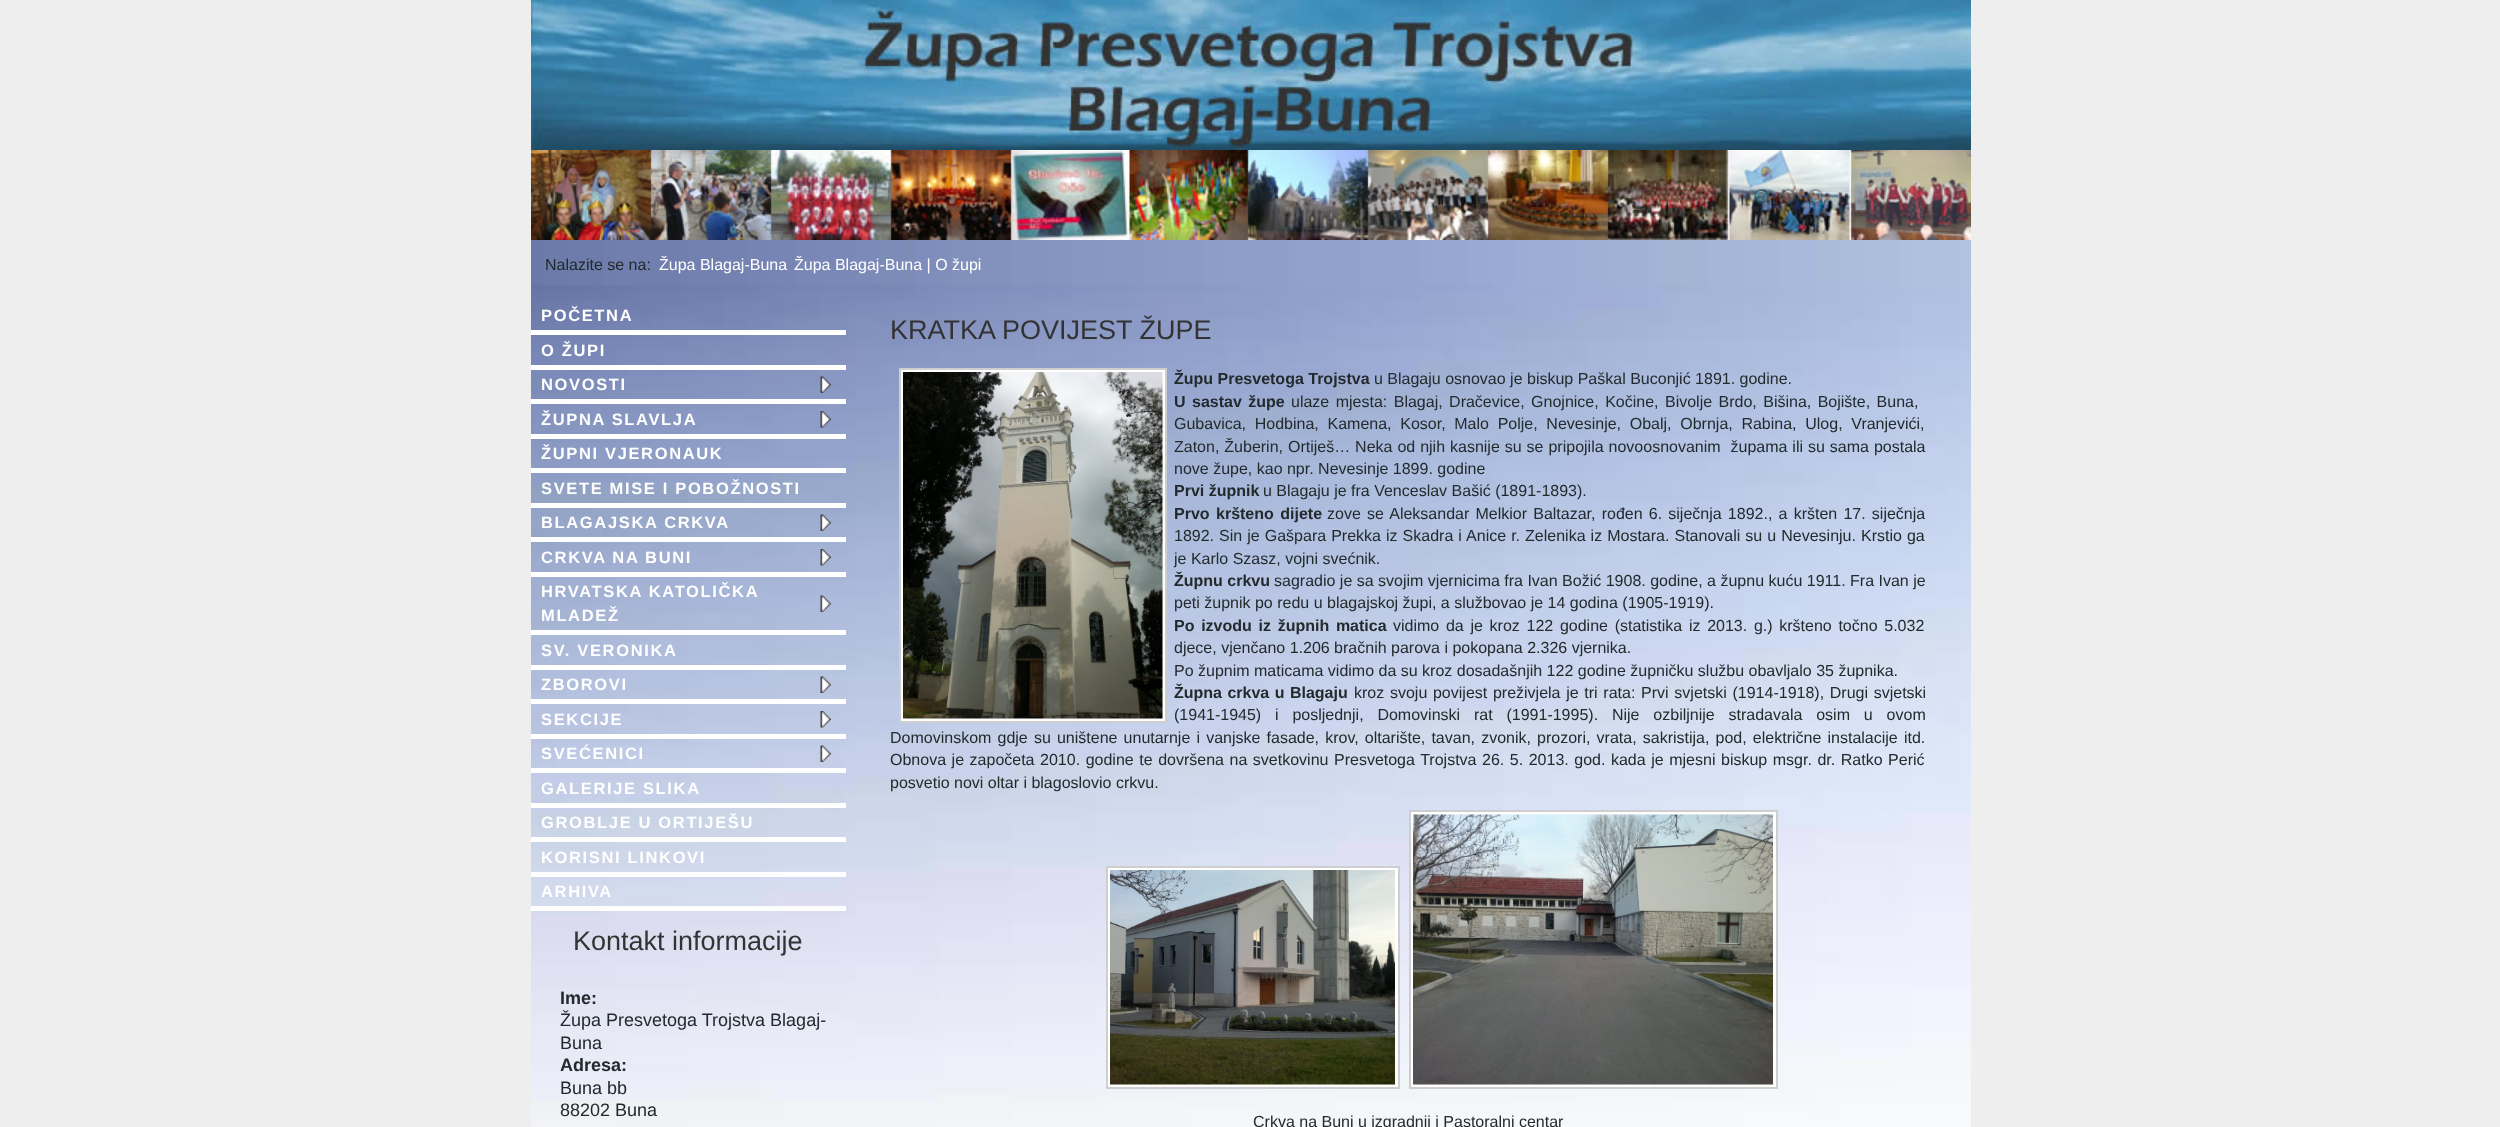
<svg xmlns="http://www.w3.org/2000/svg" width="2500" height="1127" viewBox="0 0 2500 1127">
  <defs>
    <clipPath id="clip1"><path d="M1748 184H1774V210H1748ZM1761.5 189C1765.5 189 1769 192.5 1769 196.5C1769 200.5 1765.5 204 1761.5 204C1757.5 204 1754 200.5 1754 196.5C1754 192.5 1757.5 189 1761.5 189Z" clip-rule="evenodd"/></clipPath>
    <clipPath id="clip2"><path d="M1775 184H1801V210H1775ZM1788.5 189C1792.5 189 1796 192.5 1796 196.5C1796 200.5 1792.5 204 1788.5 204C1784.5 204 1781 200.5 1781 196.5C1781 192.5 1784.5 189 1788.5 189Z" clip-rule="evenodd"/></clipPath>
    <clipPath id="clip3"><path d="M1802 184H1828V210H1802ZM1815.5 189C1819.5 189 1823 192.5 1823 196.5C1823 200.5 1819.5 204 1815.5 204C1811.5 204 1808 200.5 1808 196.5C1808 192.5 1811.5 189 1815.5 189Z" clip-rule="evenodd"/></clipPath>
  </defs>
  <rect width="100%" height="100%" fill="#eee"/>
  <image x="531" y="0" width="1440" height="150" href="img/1.png"/>
  <image x="531" y="150" width="1440" height="90" href="img/2.png"/>
  <g clip-path="url(#clip1)">
    <rect x="1752" y="188" width="18" height="18" rx="9" fill="#0000001a" filter="blur(1px)"/>
  </g>
  <circle cx="1761.5" cy="196.5" r="7.5" fill="#51a5c080"/>
  <path d="M1761 192C1763 192 1765 192.5 1766 194C1763.5 190 1758.5 190 1756 194C1757 192.5 1759 192 1761 192Z" fill="#ffffff80"/>
  <circle cx="1761.5" cy="196.5" r="6.5" fill="none" stroke="#0000004d" stroke-width="2"/>
  <g clip-path="url(#clip2)">
    <rect x="1779" y="188" width="18" height="18" rx="9" fill="#0000001a" filter="blur(1px)"/>
  </g>
  <circle cx="1788.5" cy="196.5" r="7.5" fill="#ffffff33"/>
  <path d="M1788 192C1790 192 1792 192.5 1793 194C1790.5 190 1785.5 190 1783 194C1784 192.5 1786 192 1788 192Z" fill="#ffffff80"/>
  <circle cx="1788.5" cy="196.5" r="6.5" fill="none" stroke="#0000004d" stroke-width="2"/>
  <g clip-path="url(#clip3)">
    <rect x="1806" y="188" width="18" height="18" rx="9" fill="#0000001a" filter="blur(1px)"/>
  </g>
  <circle cx="1815.5" cy="196.5" r="7.5" fill="#ffffff33"/>
  <path d="M1815 192C1817 192 1819 192.5 1820 194C1817.5 190 1812.5 190 1810 194C1811 192.5 1813 192 1815 192Z" fill="#ffffff80"/>
  <circle cx="1815.5" cy="196.5" r="6.5" fill="none" stroke="#0000004d" stroke-width="2"/>
  <image x="531" y="240" width="1440" height="45" href="img/3.png"/>
  <image x="531" y="285" width="1440" height="842" href="img/4.png"/>
  <path d="M531 330h315v5H531z" fill="#fff"/>
  <path d="M531 365h315v5H531z" fill="#fff"/>
  <path d="M531 399h315v5H531z" fill="#fff"/>
  <image x="820" y="376" width="11" height="17" href="img/5.png"/>
  <path d="M531 434h315v5H531z" fill="#fff"/>
  <image x="820" y="411" width="11" height="17" href="img/6.png"/>
  <path d="M531 468h315v5H531z" fill="#fff"/>
  <path d="M531 503h315v5H531z" fill="#fff"/>
  <path d="M531 537h315v5H531z" fill="#fff"/>
  <image x="820" y="514" width="11" height="17" href="img/7.png"/>
  <path d="M531 572h315v5H531z" fill="#fff"/>
  <image x="820" y="549" width="11" height="17" href="img/8.png"/>
  <path d="M531 630h315v5H531z" fill="#fff"/>
  <image x="820" y="595" width="11" height="17" href="img/9.png"/>
  <path d="M531 665h315v5H531z" fill="#fff"/>
  <path d="M531 699h315v5H531z" fill="#fff"/>
  <image x="820" y="676" width="11" height="17" href="img/10.png"/>
  <path d="M531 734h315v5H531z" fill="#fff"/>
  <image x="820" y="711" width="11" height="17" href="img/11.png"/>
  <path d="M531 768h315v5H531z" fill="#fff"/>
  <image x="820" y="745" width="11" height="17" href="img/12.png"/>
  <path d="M531 803h315v5H531z" fill="#fff"/>
  <path d="M531 837h315v5H531z" fill="#fff"/>
  <path d="M531 872h315v5H531z" fill="#fff"/>
  <path d="M531 906h315v5H531z" fill="#fff"/>
  <path d="M900 369h266v353H900z" fill="#fff" stroke="#cecece" stroke-width="2"/>
  <image x="903" y="372" width="260" height="347" href="img/13.png"/>
  <path d="M1410 811h367v277H1410z" fill="#fff" stroke="#cecece" stroke-width="2"/>
  <path d="M1107 867h292v221H1107z" fill="#fff" stroke="#cecece" stroke-width="2"/>
  <image x="1413" y="814" width="360" height="271" href="img/14.png"/>
  <image x="1110" y="870" width="285" height="215" href="img/15.png"/>
  <text x="545" y="270" font-family="Liberation Sans" font-size="16" fill="#222a2c">Nalazite se na:</text>
  <g font-family="Liberation Sans" font-size="16" fill="#fff">
    <text x="659" y="270">Župa Blagaj-Buna</text>
    <text x="794" y="270">Župa Blagaj-Buna | O župi</text>
  </g>
  <g font-family="Liberation Sans" font-size="16.5" font-weight="bold" letter-spacing="1.65" fill="#fff">
    <text x="541" y="321">POČETNA</text>
    <text x="541" y="356">O ŽUPI</text>
    <text x="541" y="390">NOVOSTI</text>
    <text x="541" y="425">ŽUPNA SLAVLJA</text>
    <text x="541" y="459">ŽUPNI VJERONAUK</text>
    <text x="541" y="494">SVETE MISE I POBOŽNOSTI</text>
    <text x="541" y="528">BLAGAJSKA CRKVA</text>
    <text x="541" y="563">CRKVA NA BUNI</text>
    <text x="541" y="597">HRVATSKA KATOLIČKA</text>
    <text x="541" y="621">MLADEŽ</text>
    <text x="541" y="656">SV. VERONIKA</text>
    <text x="541" y="690">ZBOROVI</text>
    <text x="541" y="725">SEKCIJE</text>
    <text x="541" y="759">SVEĆENICI</text>
    <text x="541" y="794">GALERIJE SLIKA</text>
    <text x="541" y="828">GROBLJE U ORTIJEŠU</text>
    <text x="541" y="863">KORISNI LINKOVI</text>
    <text x="541" y="897">ARHIVA</text>
  </g>
  <text x="573" y="950" font-family="Liberation Sans" font-size="27" fill="#333">Kontakt informacije</text>
  <text x="560" y="1004" font-family="Liberation Sans" font-size="18" font-weight="bold" fill="#222a2c">Ime:</text>
  <g font-family="Liberation Sans" font-size="18" fill="#222a2c">
    <text x="560" y="1026">Župa Presvetoga Trojstva Blagaj-</text>
    <text x="560" y="1049">Buna</text>
  </g>
  <text x="560" y="1071" font-family="Liberation Sans" font-size="18" font-weight="bold" fill="#222a2c">Adresa:</text>
  <g font-family="Liberation Sans" font-size="18" fill="#222a2c">
    <text x="560" y="1094">Buna bb</text>
    <text x="560" y="1116">88202 Buna</text>
  </g>
  <text x="890" y="339" font-family="Liberation Sans" font-size="27" fill="#333">KRATKA POVIJEST ŽUPE</text>
  <text x="1174" y="384" font-family="Liberation Sans" font-size="16" font-weight="bold" fill="#222a2c">Župu Presvetoga Trojstva</text>
  <text x="1374" y="384" font-family="Liberation Sans" font-size="16" fill="#222a2c">u Blagaju osnovao je biskup Paškal Buconjić 1891. godine.</text>
  <text x="1174" y="407" word-spacing="2" font-family="Liberation Sans" font-size="16" font-weight="bold" fill="#222a2c">U sastav župe</text>
  <g font-family="Liberation Sans" font-size="16" fill="#222a2c">
    <text x="1291" y="407" word-spacing="2">ulaze mjesta: Blagaj, Dračevice, Gnojnice, Kočine, Bivolje Brdo, Bišina, Bojište, Buna,</text>
    <text x="1174" y="429" word-spacing="4.25">Gubavica, Hodbina, Kamena, Kosor, Malo Polje, Nevesinje, Obalj, Obrnja, Rabina, Ulog, Vranjevići,</text>
    <text x="1174" y="452" word-spacing="0.5" xml:space="preserve">Zaton, Žuberin, Ortiješ… Neka od njih kasnije su se pripojila novoosnovanim  župama ili su sama postala</text>
    <text x="1174" y="474">nove župe, kao npr. Nevesinje 1899. godine</text>
  </g>
  <text x="1174" y="496" font-family="Liberation Sans" font-size="16" font-weight="bold" fill="#222a2c">Prvi župnik</text>
  <text x="1263" y="496" font-family="Liberation Sans" font-size="16" fill="#222a2c">u Blagaju je fra Venceslav Bašić (1891-1893).</text>
  <text x="1174" y="519" word-spacing="2" font-family="Liberation Sans" font-size="16" font-weight="bold" fill="#222a2c">Prvo kršteno dijete</text>
  <g font-family="Liberation Sans" font-size="16" fill="#222a2c">
    <text x="1327" y="519" word-spacing="1.75">zove se Aleksandar Melkior Baltazar, rođen 6. siječnja 1892., a kršten 17. siječnja</text>
    <text x="1174" y="541" word-spacing="0.6">1892. Sin je Gašpara Prekka iz Skadra i Anice r. Zelenika iz Mostara. Stanovali su u Nevesinju. Krstio ga</text>
    <text x="1174" y="564">je Karlo Szasz, vojni svećnik.</text>
  </g>
  <text x="1174" y="586" font-family="Liberation Sans" font-size="16" font-weight="bold" fill="#222a2c">Župnu crkvu</text>
  <g font-family="Liberation Sans" font-size="16" fill="#222a2c">
    <text x="1274" y="586">sagradio je sa svojim vjernicima fra Ivan Božić 1908. godine, a župnu kuću 1911. Fra Ivan je</text>
    <text x="1174" y="608">peti župnik po redu u blagajskoj župi, a službovao je 14 godina (1905-1919).</text>
  </g>
  <text x="1174" y="631" word-spacing="2.25" font-family="Liberation Sans" font-size="16" font-weight="bold" fill="#222a2c">Po izvodu iz župnih matica</text>
  <g font-family="Liberation Sans" font-size="16" fill="#222a2c">
    <text x="1393" y="631" word-spacing="2.25">vidimo da je kroz 122 godine (statistika iz 2013. g.) kršteno točno 5.032</text>
    <text x="1174" y="653">djece, vjenčano 1.206 bračnih parova i pokopana 2.326 vjernika.</text>
    <text x="1174" y="676">Po župnim maticama vidimo da su kroz dosadašnjih 122 godine župničku službu obavljalo 35 župnika.</text>
  </g>
  <text x="1174" y="698" word-spacing="1" font-family="Liberation Sans" font-size="16" font-weight="bold" fill="#222a2c">Župna crkva u Blagaju</text>
  <g font-family="Liberation Sans" font-size="16" fill="#222a2c">
    <text x="1354" y="698" word-spacing="1.25">kroz svoju povijest preživjela je tri rata: Prvi svjetski (1914-1918), Drugi svjetski</text>
    <text x="1174" y="720" word-spacing="9.4">(1941-1945) i posljednji, Domovinski rat (1991-1995). Nije ozbiljnije stradavala osim u ovom</text>
    <text x="890" y="743" word-spacing="1.7">Domovinskom gdje su uništene unutarnje i vanjske fasade, krov, oltarište, tavan, zvonik, prozori, vrata, sakristija, pod, električne instalacije itd.</text>
    <text x="890" y="765" word-spacing="1.1">Obnova je započeta 2010. godine te dovršena na svetkovinu Presvetoga Trojstva 26. 5. 2013. god. kada je mjesni biskup msgr. dr. Ratko Perić</text>
    <text x="890" y="788">posvetio novi oltar i blagoslovio crkvu.</text>
    <text x="1253" y="1127">Crkva na Buni u izgradnji i Pastoralni centar</text>
  </g>
</svg>
